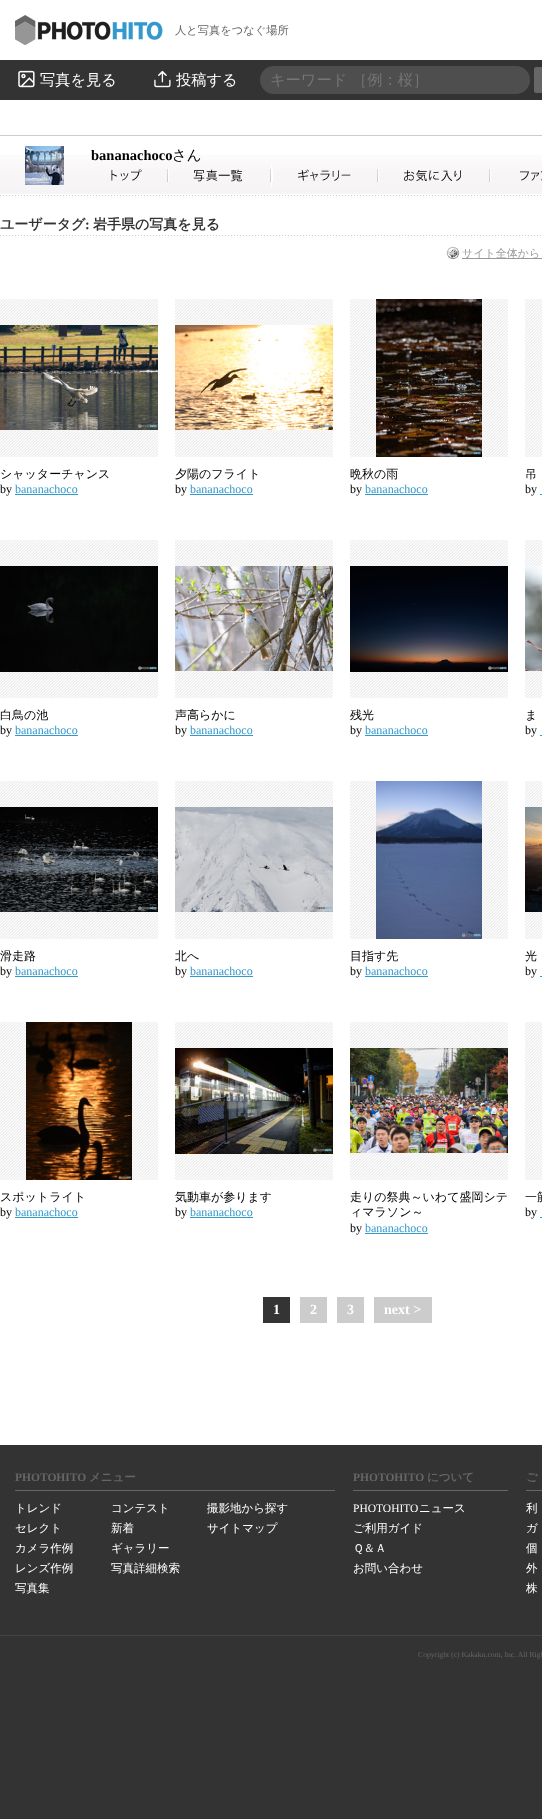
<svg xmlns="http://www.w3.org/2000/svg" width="542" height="1820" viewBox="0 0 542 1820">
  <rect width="100%" height="100%" fill="#fff"/>
  <image x="15" y="15" width="148" height="30" href="img/1.png"/>
  <path d="M0 60h542v40H0z" fill="#333"/>
  <image x="18" y="70" width="17" height="18" href="img/2.png"/>
  <image x="154" y="70" width="17" height="18" href="img/3.png"/>
  <rect x="260" y="66" width="270" height="28" rx="14" fill="#4e4e4e"/>
  <rect x="534" y="67" width="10" height="26" rx="2" fill="#666"/>
  <path d="M0 135h542v1H0z" fill="#ccc"/>
  <image x="0" y="155" width="542" height="41" href="img/4.png"/>
  <image x="25" y="146" width="39" height="39" href="img/5.png"/>
  <image x="111" y="169" width="57" height="13" href="img/6.png"/>
  <image x="168" y="164" width="103" height="23" href="img/7.png"/>
  <path d="M271 164h1v23H271z" fill="#fff"/>
  <image x="272" y="169" width="106" height="13" href="img/8.png"/>
  <image x="378" y="164" width="112" height="23" href="img/9.png"/>
  <image x="490" y="164" width="52" height="23" href="img/10.png"/>
  <image x="0" y="235" width="541" height="1" href="img/11.png"/>
  <image x="446" y="246" width="14" height="13" href="img/12.png"/>
  <path d="M462 258h80v1H462z" fill="#999"/>
  <image x="0" y="299" width="158" height="158" href="img/13.png"/>
  <image x="0" y="325" width="158" height="105" href="img/14.png"/>
  <path d="M15 494h63v1H15z" fill="#39c"/>
  <image x="175" y="299" width="158" height="158" href="img/13.png"/>
  <image x="175" y="325" width="158" height="105" href="img/15.png"/>
  <path d="M190 494h63v1H190z" fill="#39c"/>
  <image x="350" y="299" width="158" height="158" href="img/13.png"/>
  <image x="376" y="299" width="106" height="158" href="img/16.png"/>
  <path d="M365 494h63v1H365z" fill="#39c"/>
  <image x="525" y="299" width="17" height="158" href="img/17.png"/>
  <path d="M540 494h2v1H540z" fill="#39c"/>
  <image x="0" y="540" width="158" height="158" href="img/13.png"/>
  <image x="0" y="566" width="158" height="106" href="img/18.png"/>
  <path d="M15 735h63v1H15z" fill="#39c"/>
  <image x="175" y="540" width="158" height="158" href="img/13.png"/>
  <image x="175" y="566" width="158" height="105" href="img/19.png"/>
  <path d="M190 735h63v1H190z" fill="#39c"/>
  <image x="350" y="540" width="158" height="158" href="img/13.png"/>
  <image x="350" y="566" width="158" height="106" href="img/20.png"/>
  <path d="M365 735h63v1H365z" fill="#39c"/>
  <image x="525" y="540" width="17" height="158" href="img/17.png"/>
  <image x="525" y="566" width="17" height="105" href="img/21.png"/>
  <path d="M540 735h2v1H540z" fill="#39c"/>
  <image x="0" y="781" width="158" height="158" href="img/13.png"/>
  <image x="0" y="807" width="158" height="105" href="img/22.png"/>
  <path d="M15 976h63v1H15z" fill="#39c"/>
  <image x="175" y="781" width="158" height="158" href="img/13.png"/>
  <image x="175" y="807" width="158" height="105" href="img/23.png"/>
  <path d="M190 976h63v1H190z" fill="#39c"/>
  <image x="350" y="781" width="158" height="158" href="img/13.png"/>
  <image x="376" y="781" width="106" height="158" href="img/24.png"/>
  <path d="M365 976h63v1H365z" fill="#39c"/>
  <image x="525" y="781" width="17" height="158" href="img/17.png"/>
  <image x="525" y="807" width="17" height="105" href="img/25.png"/>
  <path d="M540 976h2v1H540z" fill="#39c"/>
  <image x="0" y="1022" width="158" height="158" href="img/13.png"/>
  <image x="26" y="1022" width="106" height="158" href="img/26.png"/>
  <path d="M15 1217h63v1H15z" fill="#39c"/>
  <image x="175" y="1022" width="158" height="158" href="img/13.png"/>
  <image x="175" y="1048" width="158" height="106" href="img/27.png"/>
  <path d="M190 1217h63v1H190z" fill="#39c"/>
  <image x="350" y="1022" width="158" height="158" href="img/13.png"/>
  <image x="350" y="1048" width="158" height="105" href="img/28.png"/>
  <path d="M365 1233h63v1H365z" fill="#39c"/>
  <image x="525" y="1022" width="17" height="158" href="img/17.png"/>
  <path d="M540 1217h2v1H540z" fill="#39c"/>
  <path d="M263 1297h27v26H263z" fill="#343434"/>
  <path d="M300 1297h27v26H300z" fill="#ccc"/>
  <path d="M337 1297h27v26H337z" fill="#ccc"/>
  <path d="M374 1297h58v26H374z" fill="#ccc"/>
  <path d="M0 1445h542v374H0z" fill="#333"/>
  <path d="M15 1490h320v1H15z" fill="#666"/>
  <path d="M353 1490h155v1H353z" fill="#666"/>
  <path d="M526 1490h16v1H526z" fill="#666"/>
  <path d="M0 1635h542v1H0z" fill="#444"/>
  <text x="175" y="34" font-family="WenQuanYi Zen Hei" font-size="11.25" font-weight="500" fill="#666">人と写真をつなぐ場所</text>
  <g font-family="WenQuanYi Zen Hei" font-size="15.25" font-weight="500" fill="#fff">
    <text x="40" y="85">写真を見る</text>
    <text x="176" y="85">投稿する</text>
  </g>
  <text x="270" y="85" font-family="WenQuanYi Zen Hei" font-size="15.25" font-weight="500" fill="#757575">キーワード ［例：桜］</text>
  <text x="91" y="160" font-family="Liberation Serif" font-size="14.5" font-weight="bold" fill="#000">bananachoco</text>
  <text x="172" y="160" font-family="WenQuanYi Zen Hei" font-size="14.5" font-weight="500" fill="#000">さん</text>
  <text x="0" y="229" font-family="WenQuanYi Zen Hei" font-size="14" font-weight="bold" fill="#333">ユーザータグ</text>
  <text x="85" y="229" font-family="Liberation Serif" font-size="14" font-weight="bold" fill="#333">:</text>
  <text x="93" y="229" font-family="WenQuanYi Zen Hei" font-size="14" font-weight="bold" fill="#333">岩手県の写真を見る</text>
  <text x="462" y="257" font-family="WenQuanYi Zen Hei" font-size="11" font-weight="500" fill="#999">サイト全体から</text>
  <text x="0" y="478" font-family="WenQuanYi Zen Hei" font-size="12" font-weight="500" fill="#000">シャッターチャンス</text>
  <text x="0" y="493" font-family="Liberation Serif" font-size="12" fill="#000">by</text>
  <text x="15" y="493" font-family="Liberation Serif" font-size="12" fill="#39c">bananachoco</text>
  <text x="175" y="478" font-family="WenQuanYi Zen Hei" font-size="12" font-weight="500" fill="#000">夕陽のフライト</text>
  <text x="175" y="493" font-family="Liberation Serif" font-size="12" fill="#000">by</text>
  <text x="190" y="493" font-family="Liberation Serif" font-size="12" fill="#39c">bananachoco</text>
  <text x="350" y="478" font-family="WenQuanYi Zen Hei" font-size="12" font-weight="500" fill="#000">晩秋の雨</text>
  <text x="350" y="493" font-family="Liberation Serif" font-size="12" fill="#000">by</text>
  <text x="365" y="493" font-family="Liberation Serif" font-size="12" fill="#39c">bananachoco</text>
  <text x="525" y="478" font-family="WenQuanYi Zen Hei" font-size="12" font-weight="500" fill="#000">吊</text>
  <text x="525" y="493" font-family="Liberation Serif" font-size="12" fill="#000">by</text>
  <text x="0" y="719" font-family="WenQuanYi Zen Hei" font-size="12" font-weight="500" fill="#000">白鳥の池</text>
  <text x="0" y="734" font-family="Liberation Serif" font-size="12" fill="#000">by</text>
  <text x="15" y="734" font-family="Liberation Serif" font-size="12" fill="#39c">bananachoco</text>
  <text x="175" y="719" font-family="WenQuanYi Zen Hei" font-size="12" font-weight="500" fill="#000">声高らかに</text>
  <text x="175" y="734" font-family="Liberation Serif" font-size="12" fill="#000">by</text>
  <text x="190" y="734" font-family="Liberation Serif" font-size="12" fill="#39c">bananachoco</text>
  <text x="350" y="719" font-family="WenQuanYi Zen Hei" font-size="12" font-weight="500" fill="#000">残光</text>
  <text x="350" y="734" font-family="Liberation Serif" font-size="12" fill="#000">by</text>
  <text x="365" y="734" font-family="Liberation Serif" font-size="12" fill="#39c">bananachoco</text>
  <text x="525" y="719" font-family="WenQuanYi Zen Hei" font-size="12" font-weight="500" fill="#000">ま</text>
  <text x="525" y="734" font-family="Liberation Serif" font-size="12" fill="#000">by</text>
  <text x="0" y="960" font-family="WenQuanYi Zen Hei" font-size="12" font-weight="500" fill="#000">滑走路</text>
  <text x="0" y="975" font-family="Liberation Serif" font-size="12" fill="#000">by</text>
  <text x="15" y="975" font-family="Liberation Serif" font-size="12" fill="#39c">bananachoco</text>
  <text x="175" y="960" font-family="WenQuanYi Zen Hei" font-size="12" font-weight="500" fill="#000">北へ</text>
  <text x="175" y="975" font-family="Liberation Serif" font-size="12" fill="#000">by</text>
  <text x="190" y="975" font-family="Liberation Serif" font-size="12" fill="#39c">bananachoco</text>
  <text x="350" y="960" font-family="WenQuanYi Zen Hei" font-size="12" font-weight="500" fill="#000">目指す先</text>
  <text x="350" y="975" font-family="Liberation Serif" font-size="12" fill="#000">by</text>
  <text x="365" y="975" font-family="Liberation Serif" font-size="12" fill="#39c">bananachoco</text>
  <text x="525" y="960" font-family="WenQuanYi Zen Hei" font-size="12" font-weight="500" fill="#000">光</text>
  <text x="525" y="975" font-family="Liberation Serif" font-size="12" fill="#000">by</text>
  <text x="0" y="1201" font-family="WenQuanYi Zen Hei" font-size="12" font-weight="500" fill="#000">スポットライト</text>
  <text x="0" y="1216" font-family="Liberation Serif" font-size="12" fill="#000">by</text>
  <text x="15" y="1216" font-family="Liberation Serif" font-size="12" fill="#39c">bananachoco</text>
  <text x="175" y="1201" font-family="WenQuanYi Zen Hei" font-size="12" font-weight="500" fill="#000">気動車が参ります</text>
  <text x="175" y="1216" font-family="Liberation Serif" font-size="12" fill="#000">by</text>
  <text x="190" y="1216" font-family="Liberation Serif" font-size="12" fill="#39c">bananachoco</text>
  <g font-family="WenQuanYi Zen Hei" font-size="12" font-weight="500" fill="#000">
    <text x="350" y="1201">走りの祭典～いわて盛岡シテ</text>
    <text x="350" y="1216">ィマラソン～</text>
  </g>
  <text x="350" y="1232" font-family="Liberation Serif" font-size="12" fill="#000">by</text>
  <text x="365" y="1232" font-family="Liberation Serif" font-size="12" fill="#39c">bananachoco</text>
  <text x="525" y="1201" font-family="WenQuanYi Zen Hei" font-size="12" font-weight="500" fill="#000">一筋</text>
  <text x="525" y="1216" font-family="Liberation Serif" font-size="12" fill="#000">by</text>
  <g font-family="Liberation Serif" font-size="14" font-weight="bold" fill="#fff">
    <text x="273" y="1314">1</text>
    <text x="310" y="1314">2</text>
    <text x="347" y="1314">3</text>
    <text x="384" y="1314">next &gt;</text>
  </g>
  <text x="15" y="1481" font-family="Liberation Serif" font-size="11.5" font-weight="bold" fill="#666">PHOTOHITO</text>
  <text x="89" y="1481" font-family="WenQuanYi Zen Hei" font-size="11.5" font-weight="bold" fill="#666">メニュー</text>
  <g font-family="WenQuanYi Zen Hei" font-size="11.5" font-weight="500" fill="#fff">
    <text x="15" y="1512">トレンド</text>
    <text x="15" y="1532">セレクト</text>
    <text x="15" y="1552">カメラ作例</text>
    <text x="15" y="1572">レンズ作例</text>
    <text x="15" y="1592">写真集</text>
    <text x="111" y="1512">コンテスト</text>
    <text x="111" y="1532">新着</text>
    <text x="111" y="1552">ギャラリー</text>
    <text x="111" y="1572">写真詳細検索</text>
    <text x="207" y="1512">撮影地から探す</text>
    <text x="207" y="1532">サイトマップ</text>
  </g>
  <text x="353" y="1481" font-family="Liberation Serif" font-size="11.5" font-weight="bold" fill="#666">PHOTOHITO</text>
  <text x="427" y="1481" font-family="WenQuanYi Zen Hei" font-size="11.5" font-weight="bold" fill="#666">について</text>
  <text x="353" y="1512" font-family="Liberation Serif" font-size="11.5" fill="#fff">PHOTOHITO</text>
  <g font-family="WenQuanYi Zen Hei" font-size="11.5" font-weight="500" fill="#fff">
    <text x="419" y="1512">ニュース</text>
    <text x="353" y="1532">ご利用ガイド</text>
    <text x="353" y="1552">Ｑ＆Ａ</text>
    <text x="353" y="1572">お問い合わせ</text>
  </g>
  <text x="526" y="1481" font-family="WenQuanYi Zen Hei" font-size="11.5" font-weight="bold" fill="#666">ご</text>
  <g font-family="WenQuanYi Zen Hei" font-size="11.5" font-weight="500" fill="#fff">
    <text x="526" y="1512">利</text>
    <text x="526" y="1532">ガ</text>
    <text x="526" y="1552">個</text>
    <text x="526" y="1572">外</text>
    <text x="526" y="1592">株</text>
  </g>
  <text x="418" y="1657" font-family="Liberation Serif" font-size="7.7" fill="#666">Copyright (c) Kakaku.com, Inc. All Righ</text>
</svg>
